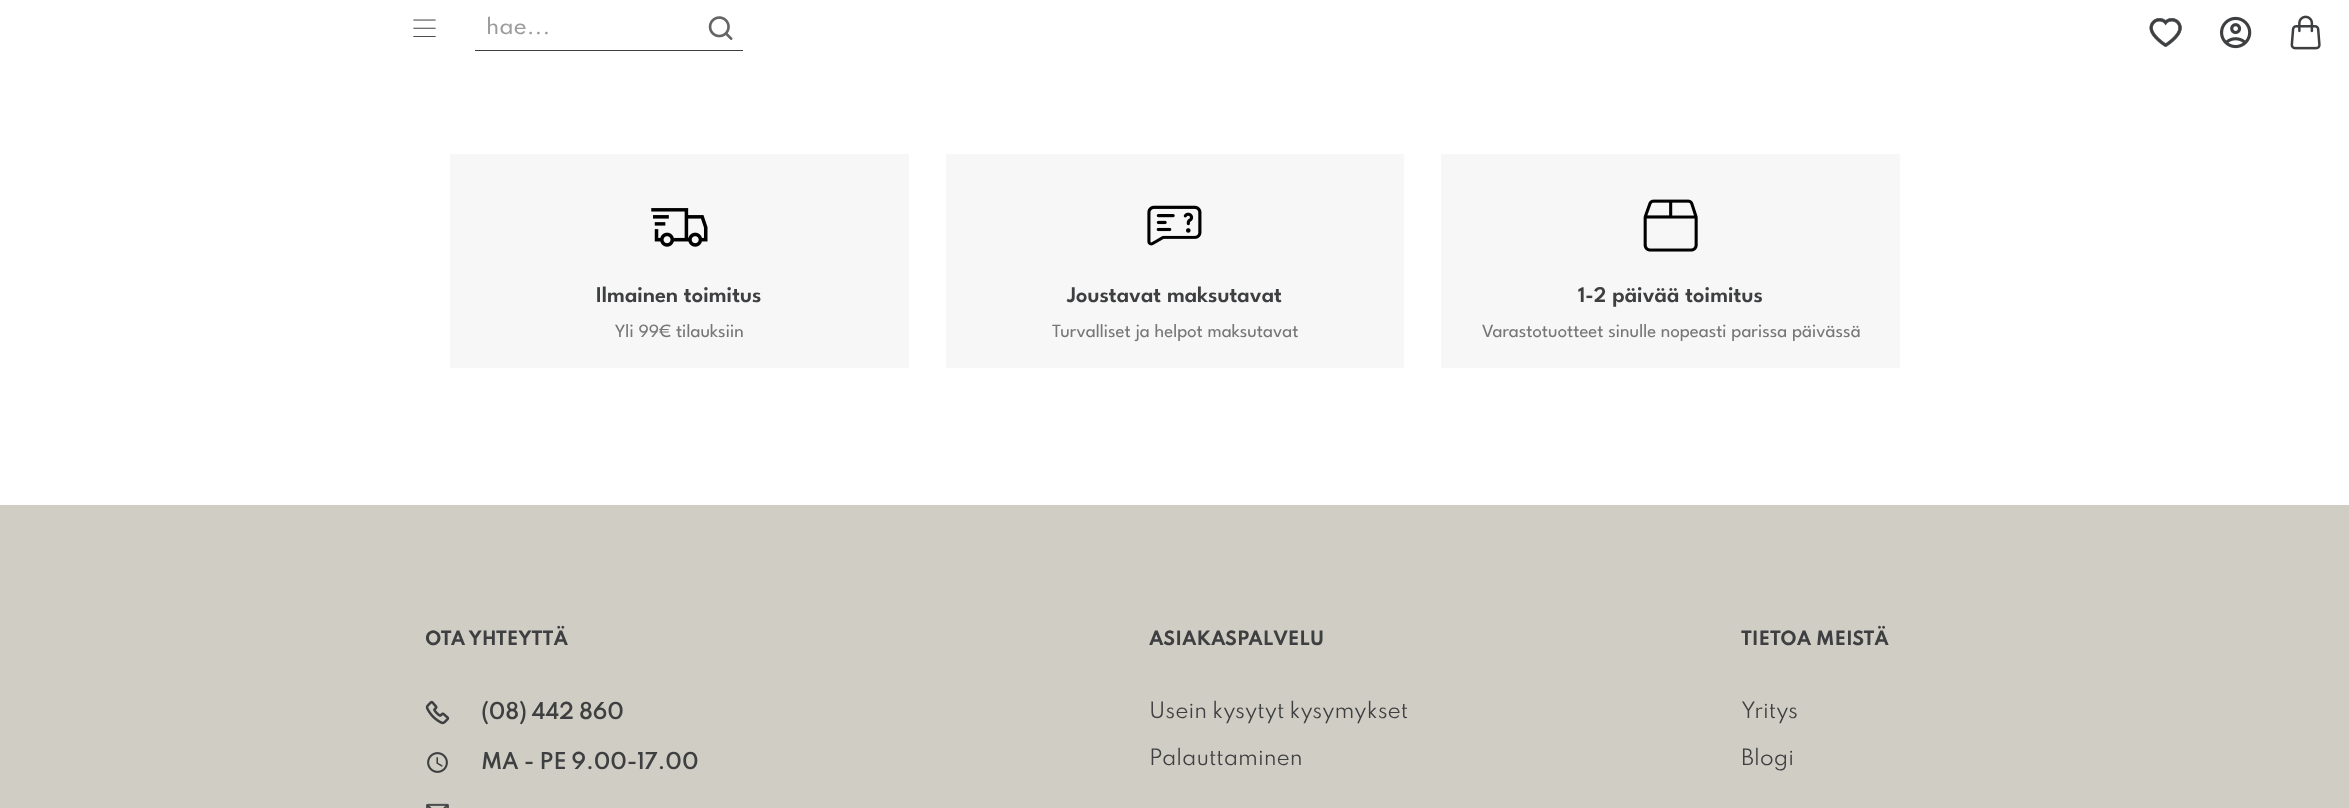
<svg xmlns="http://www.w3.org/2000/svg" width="2349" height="808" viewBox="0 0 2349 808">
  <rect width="100%" height="100%" fill="#fff"/>
  <image x="413" y="19" width="23" height="18" href="img/1.png"/>
  <path d="M475 50h268v1H475z" fill="#3e3f41"/>
  <image x="708" y="16" width="25" height="24" href="img/2.png"/>
  <image x="2149" y="18" width="33" height="29" href="img/3.png"/>
  <image x="2220" y="16" width="32" height="33" href="img/4.png"/>
  <image x="2290" y="15" width="31" height="35" href="img/5.png"/>
  <path d="M450 154h459v214H450z" fill="#f7f7f7"/>
  <image x="651" y="208" width="57" height="39" href="img/6.png"/>
  <path d="M946 154h458v214H946z" fill="#f7f7f7"/>
  <image x="1147" y="205" width="55" height="41" href="img/7.png"/>
  <path d="M1441 154h459v214H1441z" fill="#f7f7f7"/>
  <image x="1643" y="199" width="55" height="53" href="img/8.png"/>
  <path d="M0 505h2349v303H0z" fill="#d0cdc4"/>
  <image x="425" y="700" width="25" height="25" href="img/9.png"/>
  <image x="427" y="752" width="21" height="21" href="img/10.png"/>
  <image x="426" y="803" width="23" height="5" href="img/11.png"/>
  <text x="486" y="34" font-family="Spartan" font-size="20" font-weight="500" fill="#9b9b9b">hae...</text>
  <text x="596" y="302" font-family="League Spartan" font-size="22.5" font-weight="600" fill="#3e3f41">Ilmainen toimitus</text>
  <text x="615" y="337" font-family="League Spartan" font-size="18.75" fill="#777">Yli 99€ tilauksiin</text>
  <text x="1067" y="302" font-family="League Spartan" font-size="22.5" font-weight="600" fill="#3e3f41">Joustavat maksutavat</text>
  <text x="1052" y="337" font-family="League Spartan" font-size="18.75" fill="#777">Turvalliset ja helpot maksutavat</text>
  <text x="1578" y="302" font-family="League Spartan" font-size="22.5" font-weight="600" fill="#3e3f41">1-2 päivää toimitus</text>
  <text x="1482" y="337" font-family="League Spartan" font-size="18.75" fill="#777">Varastotuotteet sinulle nopeasti parissa päivässä</text>
  <text x="425" y="645" font-family="Spartan" font-size="17.5" font-weight="bold" fill="#3e3f41">OTA YHTEYTTÄ</text>
  <g font-family="'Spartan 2'" font-size="20" font-weight="bold" fill="#3e3f41">
    <text x="481" y="719">(08) 442 860</text>
    <text x="481" y="769">MA - PE 9.00-17.00</text>
  </g>
  <text x="1149" y="645" font-family="Spartan" font-size="17.5" font-weight="bold" fill="#3e3f41">ASIAKASPALVELU</text>
  <g font-family="Spartan" font-size="20" fill="#3e3f41">
    <text x="1149" y="718">Usein kysytyt kysymykset</text>
    <text x="1149" y="765">Palauttaminen</text>
  </g>
  <text x="1741" y="645" font-family="Spartan" font-size="17.5" font-weight="bold" fill="#3e3f41">TIETOA MEISTÄ</text>
  <g font-family="Spartan" font-size="20" fill="#3e3f41">
    <text x="1741" y="718">Yritys</text>
    <text x="1741" y="765">Blogi</text>
  </g>
</svg>
